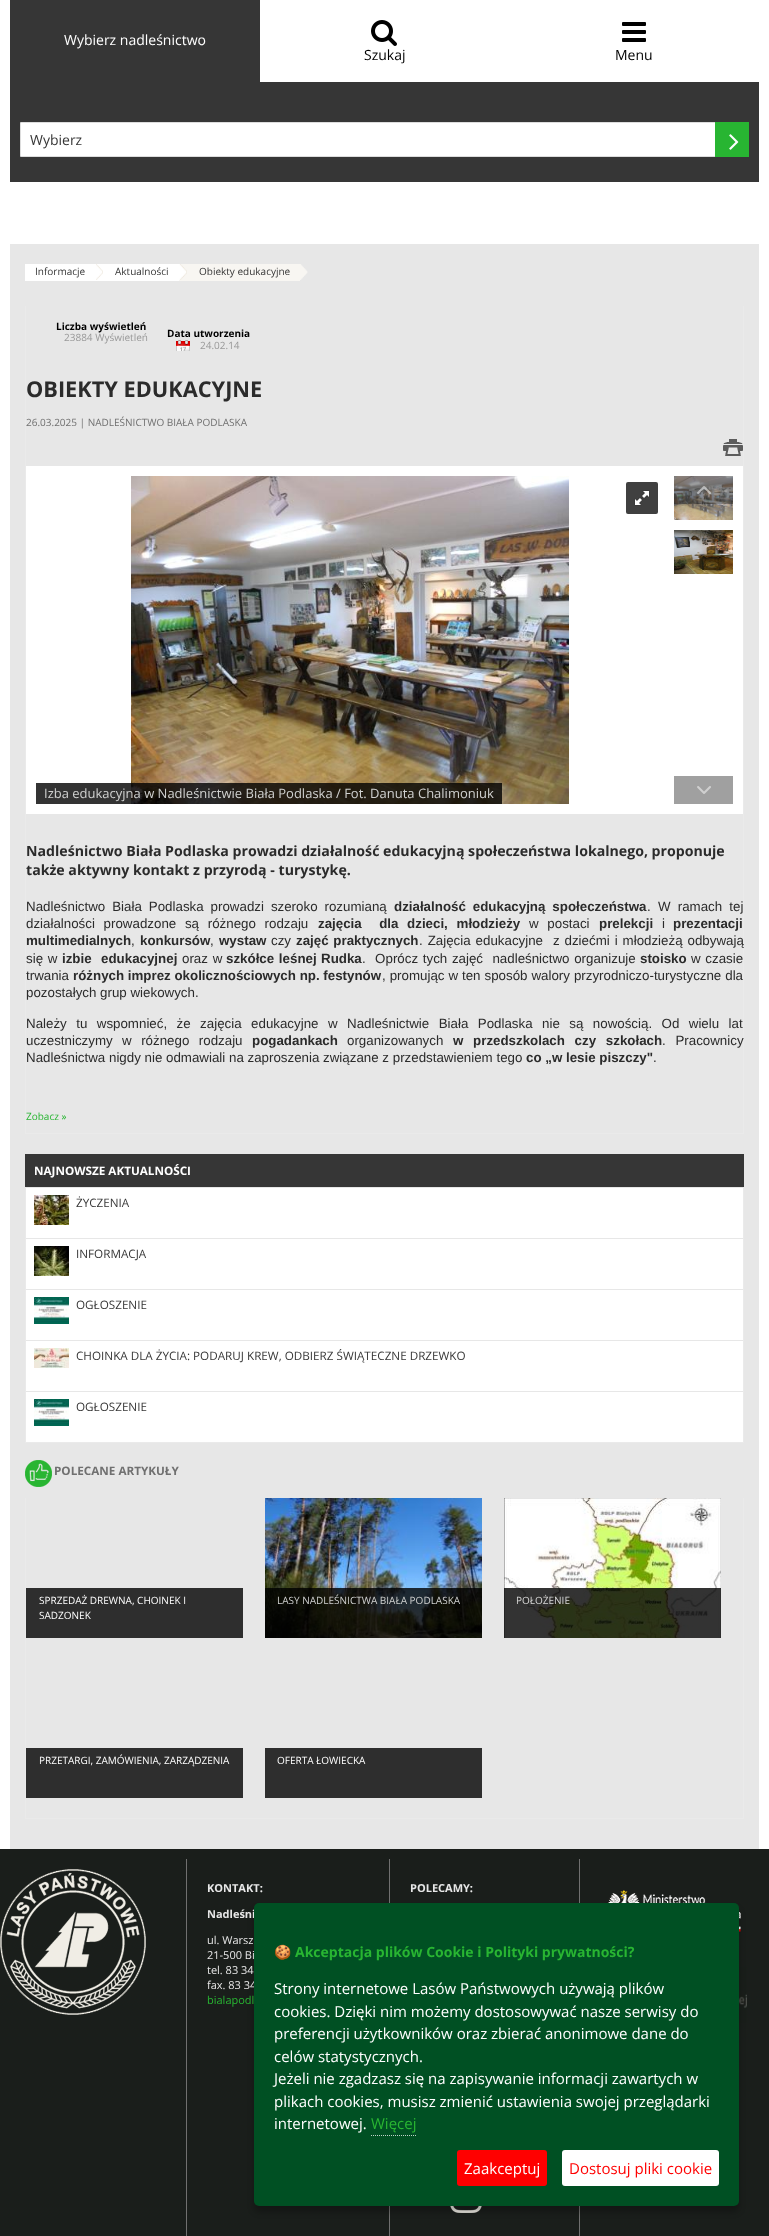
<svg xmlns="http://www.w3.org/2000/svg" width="769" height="2236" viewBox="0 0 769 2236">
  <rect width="100%" height="100%" fill="#fff"/>
  <path d="M10 0h250v82H10z" fill="#363636"/>
  <image x="371" y="20" width="26" height="26" href="img/1.png"/>
  <image x="622" y="22" width="24" height="20" href="img/2.png"/>
  <path d="M10 82h749v100H10z" fill="#363636"/>
  <path d="M21 123h694v33H21z" fill="#fff"/>
  <path d="M20.5 122.5h728v34H20.5z" fill="none" stroke="#ddd"/>
  <path d="M715 122h34v35H715z" fill="#28b532"/>
  <image x="729" y="134" width="10" height="16" href="img/3.png"/>
  <path d="M10 244h749v1605H10z" fill="#e7e7e7"/>
  <path d="M25 264h154v17H25z" fill="#fff"/>
  <image x="96" y="264" width="7" height="16" href="img/4.png"/>
  <path d="M179 264h121v17H179z" fill="#f8f6f2"/>
  <image x="179" y="264" width="8" height="16" href="img/5.png"/>
  <image x="300" y="264" width="8" height="16" href="img/6.png"/>
  <path d="M743 306h1v828H743z" fill="#eaeaea"/>
  <path d="M25 1133h719v1H25z" fill="#eaeaea"/>
  <path d="M25 306h1v828H25z" fill="#eaeaea"/>
  <image x="176" y="340" width="14" height="11" href="img/7.png"/>
  <image x="723" y="439" width="20" height="17" href="img/8.png"/>
  <path d="M26 466h717v348H26z" fill="#fff"/>
  <image x="131" y="476" width="438" height="328" href="img/9.png"/>
  <rect x="626" y="482" width="32" height="32" rx="2" fill="#404040"/>
  <image x="634" y="490" width="16" height="16" href="img/10.png"/>
  <image x="674" y="476" width="59" height="44" href="img/11.png"/>
  <image x="674" y="530" width="59" height="44" href="img/12.png"/>
  <path d="M674 476h59v28H674z" fill="#00000061"/>
  <image x="697" y="486" width="14" height="8" href="img/13.png"/>
  <path d="M674 776h59v28H674z" fill="#a0a0a0"/>
  <image x="697" y="786" width="14" height="8" href="img/14.png"/>
  <path d="M36 783h466v21H36z" fill="#000000cc"/>
  <path d="M25 1154h719v33H25z" fill="#363636"/>
  <path d="M743 1187h1v256H743z" fill="#eaeaea"/>
  <path d="M25 1442h719v1H25z" fill="#eaeaea"/>
  <path d="M25 1187h1v256H25z" fill="#eaeaea"/>
  <path d="M26 1188h717v50H26z" fill="#fff"/>
  <image x="34" y="1195" width="35" height="30" href="img/15.png"/>
  <path d="M26 1239h717v50H26z" fill="#fff"/>
  <image x="34" y="1246" width="35" height="30" href="img/16.png"/>
  <path d="M26 1290h717v50H26z" fill="#fff"/>
  <image x="34" y="1297" width="35" height="27" href="img/17.png"/>
  <path d="M26 1341h717v50H26z" fill="#fff"/>
  <image x="34" y="1348" width="35" height="20" href="img/18.png"/>
  <path d="M26 1392h717v50H26z" fill="#fff"/>
  <image x="34" y="1399" width="35" height="27" href="img/19.png"/>
  <image x="25" y="1460" width="27" height="27" href="img/20.png"/>
  <path d="M743 1498h1v321H743z" fill="#eaeaea"/>
  <path d="M25 1818h719v1H25z" fill="#eaeaea"/>
  <path d="M25 1498h1v321H25z" fill="#eaeaea"/>
  <path d="M26 1588h217v50H26z" fill="#2e2e2e"/>
  <image x="265" y="1498" width="217" height="140" href="img/21.png"/>
  <path d="M265 1588h217v50H265z" fill="#000000cc"/>
  <image x="504" y="1498" width="217" height="140" href="img/22.png"/>
  <path d="M504 1588h217v50H504z" fill="#000000cc"/>
  <path d="M26 1748h217v50H26z" fill="#2e2e2e"/>
  <path d="M265 1748h217v50H265z" fill="#2e2e2e"/>
  <path d="M0 1849h769v387H0z" fill="#1a1e1b"/>
  <path d="M186 1859h1v377H186z" fill="#707070"/>
  <image x="0" y="1869" width="146" height="146" href="img/23.png"/>
  <path d="M389 1859h1v377H389z" fill="#707070"/>
  <path d="M579 1859h1v377H579z" fill="#707070"/>
  <image x="450" y="2206" width="32" height="7" href="img/24.png"/>
  <image x="608" y="1890" width="133" height="42" href="img/25.png"/>
  <image x="739" y="1967" width="8" height="56" href="img/26.png"/>
  <rect x="254" y="1909" width="485" height="303" rx="5" fill="#00000040" filter="blur(3px)"/>
  <text x="64" y="45" font-family="Open Sans" font-size="14" fill="#fff">Wybierz nadleśnictwo</text>
  <g font-family="Open Sans" font-size="14" fill="#000">
    <text x="364" y="60">Szukaj</text>
    <text x="615" y="60">Menu</text>
  </g>
  <text x="30" y="145" font-family="Open Sans" font-size="14" fill="#363636">Wybierz</text>
  <g font-family="Open Sans" font-size="10" fill="#363636">
    <text x="35" y="275">Informacje</text>
    <text x="115" y="275">Aktualności</text>
    <text x="199" y="275">Obiekty edukacyjne</text>
  </g>
  <text x="56" y="330" font-family="Open Sans" font-size="10" font-weight="bold" fill="#000">Liczba wyświetleń</text>
  <text x="64" y="341" font-family="Open Sans" font-size="10" fill="#999">23884 Wyświetleń</text>
  <text x="167" y="337" font-family="Open Sans" font-size="10" font-weight="bold" fill="#000">Data utworzenia</text>
  <text x="200" y="349" font-family="Open Sans" font-size="10" fill="#999">24.02.14</text>
  <text x="26" y="397" font-family="Open Sans" font-size="21.75" font-weight="bold" fill="#2b2b2b">OBIEKTY EDUKACYJNE</text>
  <text x="26" y="426" font-family="Open Sans" font-size="10" fill="#707070">26.03.2025 | NADLEŚNICTWO BIAŁA PODLASKA</text>
  <text x="44" y="798" font-family="Open Sans" font-size="13" fill="#d0d1d0">Izba edukacyjna w Nadleśnictwie Biała Podlaska / Fot. Danuta Chalimoniuk</text>
  <g font-family="Open Sans" font-size="14.15" font-weight="bold" fill="#2b2b2b">
    <text x="26" y="856">Nadleśnictwo Biała Podlaska prowadzi działalność edukacyjną społeczeństwa lokalnego, proponuje</text>
    <text x="26" y="875">także aktywny kontakt z przyrodą - turystykę.</text>
  </g>
  <text x="26" y="911" word-spacing="3.25" font-family="Liberation Sans" font-size="13.33" fill="#2b2b2b">Nadleśnictwo Biała Podlaska prowadzi szeroko rozumianą</text>
  <text x="394" y="911" word-spacing="3.25" font-family="Liberation Sans" font-size="13.33" font-weight="bold" fill="#2b2b2b">działalność edukacyjną społeczeństwa</text>
  <g font-family="Liberation Sans" font-size="13.33" fill="#2b2b2b">
    <text x="647" y="911" word-spacing="3.5">. W ramach tej</text>
    <text x="26" y="928" word-spacing="5">działalności prowadzone są różnego rodzaju</text>
  </g>
  <text x="318" y="928" word-spacing="5" font-family="Liberation Sans" font-size="13.33" font-weight="bold" fill="#2b2b2b" xml:space="preserve">zajęcia  dla dzieci, młodzieży</text>
  <text x="529" y="928" word-spacing="5" font-family="Liberation Sans" font-size="13.33" fill="#2b2b2b">w postaci</text>
  <text x="599" y="928" font-family="Liberation Sans" font-size="13.33" font-weight="bold" fill="#2b2b2b">prelekcji</text>
  <text x="662" y="928" font-family="Liberation Sans" font-size="13.33" fill="#2b2b2b">i</text>
  <g font-family="Liberation Sans" font-size="13.33" font-weight="bold" fill="#2b2b2b">
    <text x="673" y="928">prezentacji</text>
    <text x="26" y="945">multimedialnych</text>
  </g>
  <text x="131" y="945" font-family="Liberation Sans" font-size="13.33" fill="#2b2b2b">,</text>
  <text x="140" y="945" font-family="Liberation Sans" font-size="13.33" font-weight="bold" fill="#2b2b2b">konkursów</text>
  <text x="210" y="945" font-family="Liberation Sans" font-size="13.33" fill="#2b2b2b">,</text>
  <text x="219" y="945" font-family="Liberation Sans" font-size="13.33" font-weight="bold" fill="#2b2b2b">wystaw</text>
  <text x="271" y="945" font-family="Liberation Sans" font-size="13.33" fill="#2b2b2b">czy</text>
  <text x="296" y="945" word-spacing="1" font-family="Liberation Sans" font-size="13.33" font-weight="bold" fill="#2b2b2b">zajęć praktycznych</text>
  <g font-family="Liberation Sans" font-size="13.33" fill="#2b2b2b">
    <text x="419" y="945" word-spacing="1.25" xml:space="preserve">. Zajęcia edukacyjne  z dziećmi i młodzieżą odbywają</text>
    <text x="26" y="963" word-spacing="1">się w</text>
  </g>
  <text x="62" y="963" word-spacing="1" font-family="Liberation Sans" font-size="13.33" font-weight="bold" fill="#2b2b2b" xml:space="preserve">izbie  edukacyjnej</text>
  <text x="182" y="963" word-spacing="1" font-family="Liberation Sans" font-size="13.33" fill="#2b2b2b">oraz w</text>
  <g font-family="Liberation Sans" font-size="13.33" font-weight="bold" fill="#2b2b2b">
    <text x="226" y="963" word-spacing="1">szkółce leśnej</text>
    <text x="321" y="963">Rudka</text>
  </g>
  <text x="362" y="963" word-spacing="1" font-family="Liberation Sans" font-size="13.33" fill="#2b2b2b" xml:space="preserve">.  Oprócz tych zajęć  nadleśnictwo organizuje</text>
  <text x="640" y="963" font-family="Liberation Sans" font-size="13.33" font-weight="bold" fill="#2b2b2b">stoisko</text>
  <g font-family="Liberation Sans" font-size="13.33" fill="#2b2b2b">
    <text x="691" y="963" word-spacing="1">w czasie</text>
    <text x="26" y="980">trwania</text>
  </g>
  <text x="73" y="980" font-family="Liberation Sans" font-size="13.33" font-weight="bold" fill="#2b2b2b">różnych imprez okolicznościowych np. festynów</text>
  <g font-family="Liberation Sans" font-size="13.33" fill="#2b2b2b">
    <text x="382" y="980" word-spacing="0.25">, promując w ten sposób walory przyrodniczo-turystyczne dla</text>
    <text x="26" y="997">pozostałych grup wiekowych.</text>
    <text x="26" y="1028" word-spacing="5.75">Należy tu wspomnieć, że zajęcia edukacyjne w Nadleśnictwie Biała Podlaska nie są nowością. Od wielu lat</text>
    <text x="26" y="1045" word-spacing="5.75">uczestniczymy w różnego rodzaju</text>
  </g>
  <text x="252" y="1045" font-family="Liberation Sans" font-size="13.33" font-weight="bold" fill="#2b2b2b">pogadankach</text>
  <text x="347" y="1045" font-family="Liberation Sans" font-size="13.33" fill="#2b2b2b">organizowanych</text>
  <text x="453" y="1045" word-spacing="6" font-family="Liberation Sans" font-size="13.33" font-weight="bold" fill="#2b2b2b">w przedszkolach czy szkołach</text>
  <g font-family="Liberation Sans" font-size="13.33" fill="#2b2b2b">
    <text x="662" y="1045" word-spacing="6">. Pracownicy</text>
    <text x="26" y="1062">Nadleśnictwa nigdy nie odmawiali na zaproszenia związane z przedstawieniem tego</text>
  </g>
  <text x="526" y="1062" font-family="Liberation Sans" font-size="13.33" font-weight="bold" fill="#2b2b2b">co „w lesie piszczy"</text>
  <text x="653" y="1062" font-family="Liberation Sans" font-size="13.33" fill="#2b2b2b">.</text>
  <text x="26" y="1120" font-family="Open Sans" font-size="10" fill="#28b532">Zobacz »</text>
  <text x="34" y="1175" font-family="Open Sans" font-size="11.7" font-weight="bold" fill="#fff">NAJNOWSZE AKTUALNOŚCI</text>
  <g font-family="Open Sans" font-size="11.7" fill="#363636">
    <text x="76" y="1207">ŻYCZENIA</text>
    <text x="76" y="1258">INFORMACJA</text>
    <text x="76" y="1309">OGŁOSZENIE</text>
    <text x="76" y="1360">CHOINKA DLA ŻYCIA: PODARUJ KREW, ODBIERZ ŚWIĄTECZNE DRZEWKO</text>
    <text x="76" y="1411">OGŁOSZENIE</text>
  </g>
  <text x="54" y="1475" font-family="Open Sans" font-size="11.7" font-weight="bold" fill="#707070">POLECANE ARTYKUŁY</text>
  <g font-family="Open Sans" font-size="10" fill="#fff">
    <text x="39" y="1604">SPRZEDAŻ DREWNA, CHOINEK I</text>
    <text x="39" y="1619">SADZONEK</text>
  </g>
  <text x="277" y="1604" font-family="Open Sans" font-size="10" fill="#d0d1d0">LASY NADLEŚNICTWA BIAŁA PODLASKA</text>
  <text x="516" y="1604" font-family="Open Sans" font-size="10" fill="#d6d6d5">POŁOŻENIE</text>
  <g font-family="Open Sans" font-size="10" fill="#fff">
    <text x="39" y="1764">PRZETARGI, ZAMÓWIENIA, ZARZĄDZENIA</text>
    <text x="277" y="1764">OFERTA ŁOWIECKA</text>
  </g>
  <g font-family="Open Sans" font-size="11" font-weight="bold" fill="#e7e7e7">
    <text x="207" y="1892">KONTAKT:</text>
    <text x="207" y="1918">Nadleśni</text>
  </g>
  <g font-family="Open Sans" font-size="11" fill="#e7e7e7">
    <text x="207" y="1944">ul. Warsz</text>
    <text x="207" y="1959">21-500 Bi</text>
    <text x="207" y="1974">tel. 83 34</text>
    <text x="207" y="1989">fax. 83 34</text>
  </g>
  <text x="207" y="2004" font-family="Open Sans" font-size="11" fill="#28b532">bialapodl</text>
  <text x="410" y="1892" font-family="Open Sans" font-size="11" font-weight="bold" fill="#e7e7e7">POLECAMY:</text>
  <rect x="254" y="1903" width="485" height="303" rx="5" fill="#005023"/>
  <text x="274" y="1957" font-family="Noto Color Emoji" font-size="14" font-weight="bold" fill="#28b532">🍪</text>
  <text x="295" y="1957" font-family="Open Sans" font-size="14" font-weight="bold" fill="#28b532">Akceptacja plików Cookie i Polityki prywatności?</text>
  <g font-family="Open Sans" font-size="15" fill="#fff">
    <text x="274" y="1994">Strony internetowe Lasów Państwowych używają plików</text>
    <text x="274" y="2017">cookies. Dzięki nim możemy dostosowywać nasze serwisy do</text>
    <text x="274" y="2039">preferencji użytkowników oraz zbierać anonimowe dane do</text>
    <text x="274" y="2062">celów statystycznych.</text>
    <text x="274" y="2084">Jeżeli nie zgadzasz się na zapisywanie informacji zawartych w</text>
    <text x="274" y="2107">plikach cookies, musisz zmienić ustawienia swojej przeglądarki</text>
    <text x="274" y="2129">internetowej.</text>
  </g>
  <text x="371" y="2129" font-family="Open Sans" font-size="15" fill="#28b532">Więcej</text>
  <path d="M371 2135.5H416" fill="none" stroke="#bfd3c8" stroke-dasharray="1 1"/>
  <rect x="457" y="2150" width="90" height="36" rx="3" fill="#f00"/>
  <text x="464" y="2174" font-family="Open Sans" font-size="15" fill="#fff">Zaakceptuj</text>
  <rect x="562" y="2150" width="157" height="36" rx="3" fill="#fff"/>
  <text x="569" y="2174" font-family="Open Sans" font-size="15" fill="#f00">Dostosuj pliki cookie</text>
</svg>
